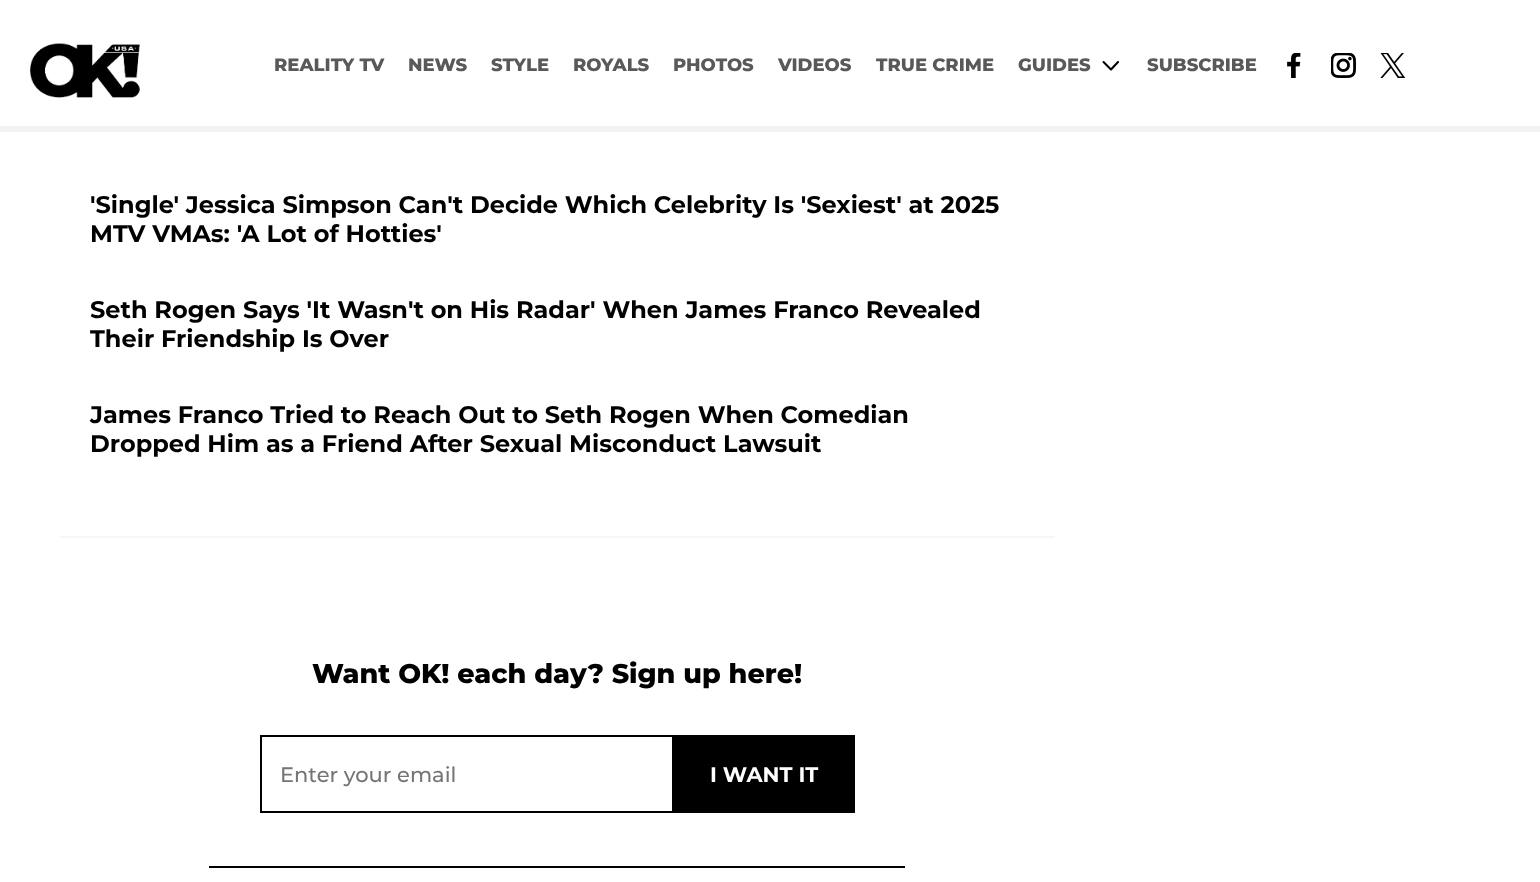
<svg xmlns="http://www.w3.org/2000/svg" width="1540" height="882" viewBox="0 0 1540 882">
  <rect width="100%" height="100%" fill="#fff"/>
  <path d="M0 126h1540v6H0z" fill="#f2f2f2"/>
  <image x="30" y="43" width="110" height="55" href="img/1.png"/>
  <path d="M1118 62L1111 69.5L1103.5 62" fill="none" stroke="#000" stroke-width="2.1" stroke-linecap="round" stroke-linejoin="round"/>
  <image x="1287" y="53" width="14" height="25" href="img/2.png"/>
  <image x="1331" y="53" width="25" height="25" href="img/3.png"/>
  <image x="1380" y="53" width="26" height="25" href="img/4.png"/>
  <path d="M60 536h995v2H60z" fill="#f6f6f6"/>
  <path d="M209 866h696v2H209z" fill="#000"/>
  <path d="M261 736h412v76H261z" fill="none" stroke="#000" stroke-width="2"/>
  <path d="M674 735h181v78H674z" fill="#000"/>
  <g font-family="Montserrat" font-size="18" font-weight="800" fill="#595959">
    <text x="274" y="71">REALITY TV</text>
    <text x="408" y="71">NEWS</text>
    <text x="491" y="71">STYLE</text>
    <text x="573" y="71">ROYALS</text>
    <text x="673" y="71">PHOTOS</text>
    <text x="778" y="71">VIDEOS</text>
    <text x="876" y="71">TRUE CRIME</text>
    <text x="1018" y="71">GUIDES</text>
    <text x="1147" y="71">SUBSCRIBE</text>
  </g>
  <g font-family="Montserrat" font-size="24" font-weight="bold" fill="#000">
    <text x="90" y="213">'Single' Jessica Simpson Can't Decide Which Celebrity Is 'Sexiest' at 2025</text>
    <text x="90" y="242">MTV VMAs: 'A Lot of Hotties'</text>
    <text x="90" y="318">Seth Rogen Says 'It Wasn't on His Radar' When James Franco Revealed</text>
    <text x="90" y="347">Their Friendship Is Over</text>
    <text x="90" y="423">James Franco Tried to Reach Out to Seth Rogen When Comedian</text>
    <text x="90" y="452">Dropped Him as a Friend After Sexual Misconduct Lawsuit</text>
  </g>
  <text x="312" y="683" font-family="Montserrat" font-size="27" font-weight="800" fill="#000">Want OK! each day? Sign up here!</text>
  <text x="280" y="782" font-family="Montserrat" font-size="21" font-weight="500" fill="#757575">Enter your email</text>
  <text x="710" y="782" font-family="Montserrat" font-size="21" font-weight="bold" fill="#fff">I WANT IT</text>
</svg>
